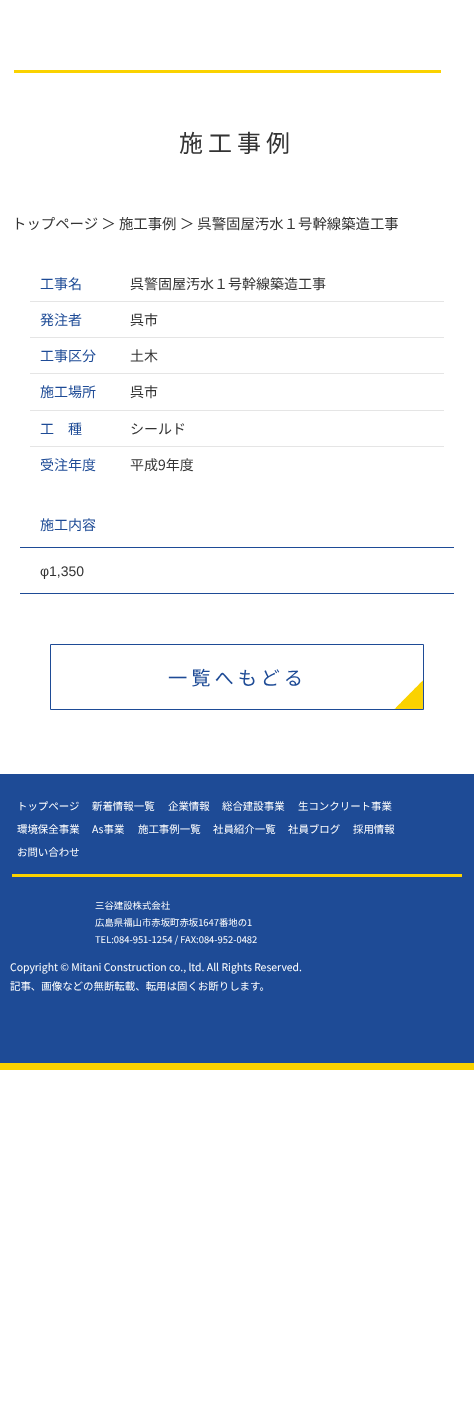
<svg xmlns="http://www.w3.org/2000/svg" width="474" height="1405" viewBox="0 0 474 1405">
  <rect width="100%" height="100%" fill="#fff"/>
  <path d="M14 70h427v3H14z" fill="#fad200"/>
  <path d="M30 301h414v1H30z" fill="#e5e5e5"/>
  <path d="M30 337h414v1H30z" fill="#e5e5e5"/>
  <path d="M30 373h414v1H30z" fill="#e5e5e5"/>
  <path d="M30 410h414v1H30z" fill="#e5e5e5"/>
  <path d="M30 446h414v1H30z" fill="#e5e5e5"/>
  <path d="M20 547h434v1H20z" fill="#1e4b96"/>
  <path d="M20 593h434v1H20z" fill="#1e4b96"/>
  <image x="394" y="680" width="29" height="29" href="img/1.png"/>
  <path d="M50.5 644.5h373v65H50.5z" fill="none" stroke="#1e4b96"/>
  <path d="M0 774h474v289H0z" fill="#1e4b96"/>
  <path d="M0 1063h474v7H0z" fill="#fad200"/>
  <path d="M12 874h450v3H12z" fill="#fad200"/>
  <text x="179" y="152" font-family="Noto Sans JP" font-size="24" letter-spacing="5" fill="#333">施工事例</text>
  <text x="12" y="229" font-family="Noto Sans JP" font-size="14.4" fill="#333">トップページ ＞ 施工事例 ＞ 呉警固屋汚水１号幹線築造工事</text>
  <text x="40" y="289" font-family="Noto Sans JP" font-size="14" fill="#1e4b96">工事名</text>
  <text x="130" y="289" font-family="Noto Sans JP" font-size="14" fill="#333">呉警固屋汚水１号幹線築造工事</text>
  <text x="40" y="325" font-family="Noto Sans JP" font-size="14" fill="#1e4b96">発注者</text>
  <text x="130" y="325" font-family="Noto Sans JP" font-size="14" fill="#333">呉市</text>
  <text x="40" y="361" font-family="Noto Sans JP" font-size="14" fill="#1e4b96">工事区分</text>
  <text x="130" y="361" font-family="Noto Sans JP" font-size="14" fill="#333">土木</text>
  <text x="40" y="397" font-family="Noto Sans JP" font-size="14" fill="#1e4b96">施工場所</text>
  <text x="130" y="397" font-family="Noto Sans JP" font-size="14" fill="#333">呉市</text>
  <text x="40" y="434" font-family="Noto Sans JP" font-size="14" fill="#1e4b96">工　種</text>
  <text x="130" y="434" font-family="Noto Sans JP" font-size="14" fill="#333">シールド</text>
  <text x="40" y="470" font-family="Noto Sans JP" font-size="14" fill="#1e4b96">受注年度</text>
  <text x="130" y="470" font-family="Noto Sans JP" font-size="14" fill="#333">平成9年度</text>
  <text x="40" y="530" font-family="Noto Sans JP" font-size="14" fill="#1e4b96">施工内容</text>
  <text x="40" y="576" font-family="Liberation Sans" font-size="14" fill="#333">φ1,350</text>
  <text x="168" y="685" font-family="Noto Sans JP" font-size="19.25" letter-spacing="4" fill="#1e4b96">一覧へもどる</text>
  <g font-family="Noto Sans JP" font-size="10.45" fill="#fff">
    <text x="17" y="810">トップページ</text>
    <text x="92" y="810">新着情報一覧</text>
    <text x="168" y="810">企業情報</text>
    <text x="222" y="810">総合建設事業</text>
    <text x="298" y="810">生コンクリート事業</text>
    <text x="17" y="833">環境保全事業</text>
    <text x="92" y="833">As事業</text>
    <text x="138" y="833">施工事例一覧</text>
    <text x="213" y="833">社員紹介一覧</text>
    <text x="288" y="833">社員ブログ</text>
    <text x="353" y="833">採用情報</text>
    <text x="17" y="856">お問い合わせ</text>
  </g>
  <g font-family="Noto Sans JP" font-size="9.4" fill="#fff">
    <text x="95" y="909">三谷建設株式会社</text>
    <text x="95" y="926">広島県福山市赤坂町赤坂1647番地の1</text>
    <text x="95" y="943">TEL:084-951-1254 / FAX:084-952-0482</text>
  </g>
  <g font-family="Noto Sans JP" font-size="10.45" fill="#fff">
    <text x="10" y="971">Copyright © Mitani Construction co., ltd. All Rights Reserved.</text>
    <text x="10" y="990">記事、画像などの無断転載、転用は固くお断りします。</text>
  </g>
</svg>
